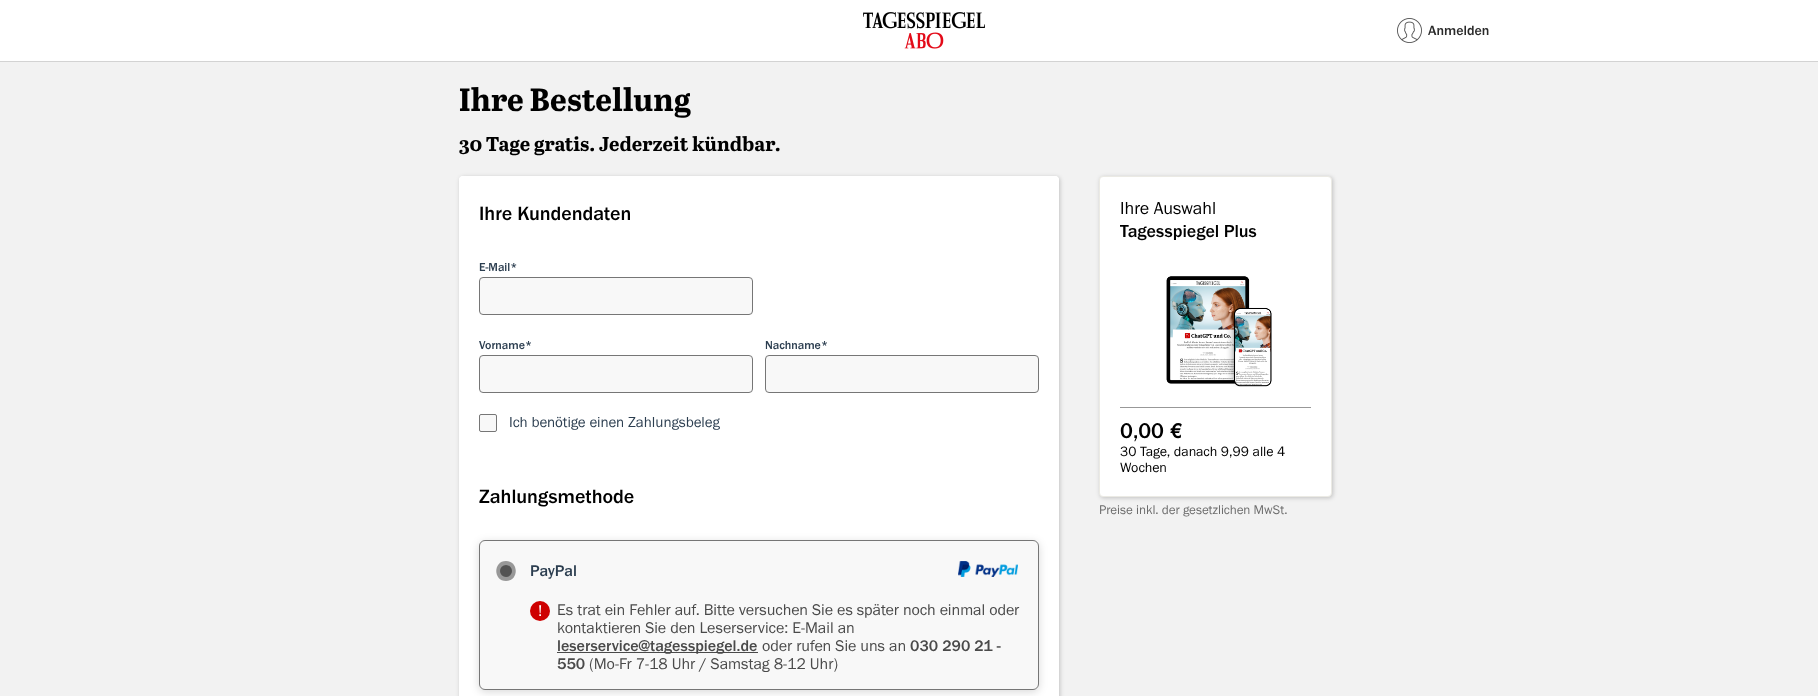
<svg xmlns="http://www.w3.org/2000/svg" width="1818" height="696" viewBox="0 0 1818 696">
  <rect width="100%" height="100%" fill="#fff"/>
  <path d="M0 61h1818v1H0z" fill="#d3d3d3"/>
  <image x="863" y="12" width="122" height="37" href="img/1.png"/>
  <image x="1397" y="18" width="25" height="25" href="img/2.png"/>
  <path d="M0 62h1818v634H0z" fill="#f2f2f2"/>
  <rect x="460" y="177" width="600" height="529" rx="4" fill="#00000033" filter="blur(2px)"/>
  <rect x="459" y="176" width="600" height="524" rx="4" fill="#fff"/>
  <path d="M463 176H1055C1057 176 1059 178 1059 180V459H459V180C459 178 461 176 463 176Z" fill="#fff"/>
  <rect x="479.5" y="277.5" width="273" height="37" rx="3.5" fill="#f8f8f8" stroke="#767676"/>
  <rect x="479.5" y="355.5" width="273" height="37" rx="3.5" fill="#f8f8f8" stroke="#767676"/>
  <rect x="765.5" y="355.5" width="273" height="37" rx="3.5" fill="#f8f8f8" stroke="#767676"/>
  <rect x="479.5" y="414.5" width="17" height="17" rx="1.5" fill="#f8f8f8" stroke="#767676"/>
  <rect x="479" y="542" width="560" height="150" rx="6" fill="#00000026" filter="blur(4px)"/>
  <rect x="479" y="540" width="560" height="150" rx="6" fill="#f8f8f8"/>
  <image x="958" y="561" width="60" height="16" href="img/3.png"/>
  <rect x="479.5" y="540.5" width="559" height="149" rx="5.5" fill="none" stroke="#767676"/>
  <circle cx="506" cy="571" r="10" fill="#fff"/>
  <path d="M506 561C519 561 519 581 506 581C493 581 493 561 506 561Z" fill="#989898"/>
  <circle cx="506" cy="571" r="6" fill="#535353"/>
  <circle cx="540" cy="611" r="10" fill="#ce0000"/>
  <path d="M557 652h201v1H557z" fill="#4a4a4a"/>
  <rect x="1100" y="177" width="233" height="321" rx="4" fill="#00000033" filter="blur(2px)"/>
  <rect x="1099.5" y="176.5" width="232" height="320" rx="3.5" fill="#fff" stroke="#ebeae4"/>
  <image x="1166" y="276" width="106" height="111" href="img/4.png"/>
  <path d="M1120 407h191v1H1120z" fill="#989898"/>
  <text x="1428" y="35" font-family="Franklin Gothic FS" font-size="14" font-weight="500" fill="#2a2a2a">Anmelden</text>
  <text x="459" y="111" font-family="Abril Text" font-size="32" font-weight="bold" fill="#000">Ihre Bestellung</text>
  <text x="459" y="151" font-family="Abril Text" font-size="20" font-weight="bold" fill="#000">30 Tage gratis. Jederzeit kündbar.</text>
  <text x="479" y="220" font-family="Franklin Gothic FS" font-size="20" font-weight="500" fill="#000">Ihre Kundendaten</text>
  <g font-family="Franklin Gothic FS" font-size="12" font-weight="500" fill="#2c3e50">
    <text x="479" y="271">E-Mail*</text>
    <text x="479" y="349">Vorname*</text>
    <text x="765" y="349">Nachname*</text>
  </g>
  <text x="509" y="427" font-family="Franklin Gothic FS" font-size="15" fill="#2c3e50">Ich benötige einen Zahlungsbeleg</text>
  <text x="479" y="503" font-family="Franklin Gothic FS" font-size="20" font-weight="500" fill="#000">Zahlungsmethode</text>
  <text x="530" y="576" font-family="Franklin Gothic FS" font-size="16" font-weight="500" fill="#2c3e50">PayPal</text>
  <text x="538" y="616" font-family="Franklin Gothic FS" font-size="16" fill="#fff">!</text>
  <g font-family="Franklin Gothic FS" font-size="16" fill="#4a4a4a">
    <text x="557" y="615">Es trat ein Fehler auf. Bitte versuchen Sie es später noch einmal oder</text>
    <text x="557" y="633">kontaktieren Sie den Leserservice: E-Mail an</text>
  </g>
  <text x="557" y="651" font-family="Franklin Gothic FS" font-size="16" font-weight="500" fill="#4a4a4a">leserservice@tagesspiegel.de</text>
  <text x="762" y="651" font-family="Franklin Gothic FS" font-size="16" fill="#4a4a4a">oder rufen Sie uns an</text>
  <g font-family="Franklin Gothic FS" font-size="16" font-weight="500" fill="#4a4a4a">
    <text x="910" y="651">030 290 21 -</text>
    <text x="557" y="669">550</text>
  </g>
  <text x="589" y="669" font-family="Franklin Gothic FS" font-size="16" fill="#4a4a4a">(Mo-Fr 7-18 Uhr / Samstag 8-12 Uhr)</text>
  <text x="1120" y="214" font-family="Franklin Gothic FS" font-size="18" fill="#000">Ihre Auswahl</text>
  <text x="1120" y="237" font-family="Franklin Gothic FS" font-size="18" font-weight="500" fill="#000">Tagesspiegel Plus</text>
  <text x="1120" y="438" font-family="Franklin Gothic FS" font-size="22" font-weight="500" fill="#000">0,00 €</text>
  <g font-family="Franklin Gothic FS" font-size="14" fill="#000">
    <text x="1120" y="456">30 Tage, danach 9,99 alle 4</text>
    <text x="1120" y="472">Wochen</text>
  </g>
  <text x="1099" y="514" font-family="Franklin Gothic FS" font-size="13" fill="#6d6d6d">Preise inkl. der gesetzlichen MwSt.</text>
</svg>
